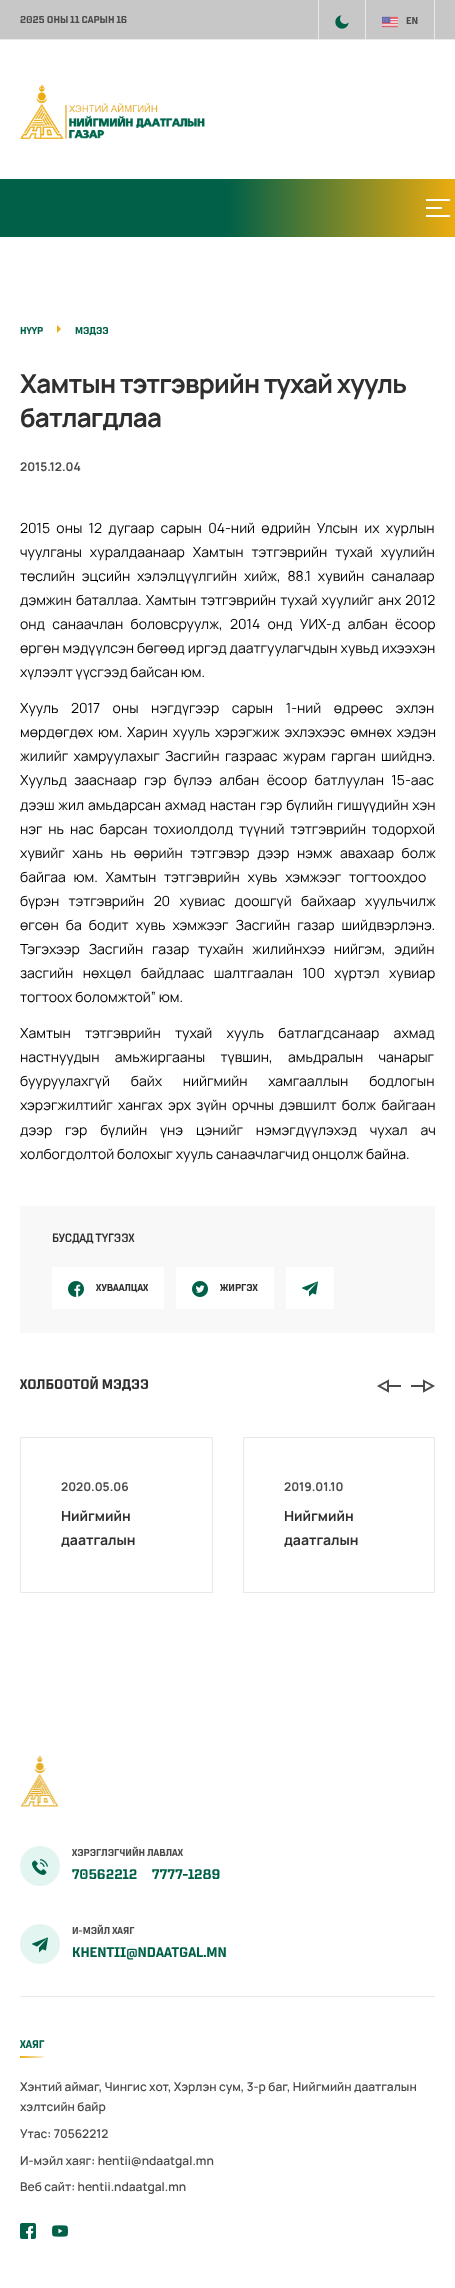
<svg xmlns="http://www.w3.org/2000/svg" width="455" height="2288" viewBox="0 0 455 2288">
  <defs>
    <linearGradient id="g1" gradientUnits="userSpaceOnUse" x1="0" y1="208" x2="455" y2="208"><stop offset="0.5" stop-color="#006048"/><stop offset="1" stop-color="#ecac0f"/></linearGradient>
    <linearGradient id="g2" gradientUnits="userSpaceOnUse" x1="44" y1="2057" x2="20" y2="2057"><stop offset="0" stop-color="#fcf2d9"/><stop offset="1" stop-color="#ecac0f"/></linearGradient>
  </defs>
  <rect width="100%" height="100%" fill="#fff"/>
  <path d="M0 0h455v39H0z" fill="#c7c7c7"/>
  <path d="M0 39h455v1H0z" fill="#e8e8e8"/>
  <path d="M318 0h1v39H318z" fill="#e8e8e8"/>
  <image x="335" y="15" width="14" height="14" href="img/1.png"/>
  <path d="M434 0h1v39H434z" fill="#e8e8e8"/>
  <path d="M365 0h1v39H365z" fill="#e8e8e8"/>
  <image x="382" y="16" width="16" height="12" href="img/2.png"/>
  <image x="20" y="84" width="185" height="55" href="img/3.png"/>
  <path d="M0 179h455v58H0z" fill="url(#g1)"/>
  <path d="M426 199h24v2H426z" fill="#fff"/>
  <path d="M426 207h16v2H426z" fill="#fff"/>
  <path d="M426 215h24v2H426z" fill="#fff"/>
  <path d="M57 333L61 329L57 325Z" fill="#ecac0f"/>
  <path d="M20 1206h415v127H20z" fill="#f8f8f8"/>
  <path d="M52 1267h112v42H52z" fill="#fff"/>
  <image x="68" y="1281" width="16" height="16" href="img/4.png"/>
  <path d="M176 1267h98v42H176z" fill="#fff"/>
  <image x="192" y="1281" width="16" height="16" href="img/5.png"/>
  <path d="M286 1267h48v42H286z" fill="#fff"/>
  <image x="302" y="1281" width="16" height="16" href="img/6.png"/>
  <path d="M388 1381L379 1386L388 1391Z" fill="none" stroke="#4b4b4b" stroke-width="2"/>
  <path d="M389 1385h12v2H389z" fill="#4b4b4b"/>
  <path d="M411 1385h12v2H411z" fill="#4b4b4b"/>
  <path d="M424 1381L433 1386L424 1391Z" fill="none" stroke="#4b4b4b" stroke-width="2"/>
  <path d="M20.5 1437.5h192v155H20.5z" fill="none" stroke="#e8e8e8"/>
  <path d="M243.5 1437.5h191v155H243.5z" fill="none" stroke="#e8e8e8"/>
  <image x="20" y="1754" width="39" height="53" href="img/7.png"/>
  <circle cx="40" cy="1866" r="20" fill="#e2f5f1"/>
  <image x="32" y="1859" width="16" height="16" href="img/8.png"/>
  <circle cx="40" cy="1944" r="20" fill="#e2f5f1"/>
  <image x="32" y="1937" width="16" height="16" href="img/9.png"/>
  <path d="M20 1996h415v1H20z" fill="#e8e8e8"/>
  <path d="M20 2056h24v2H20z" fill="url(#g2)"/>
  <image x="20" y="2223" width="16" height="16" href="img/10.png"/>
  <image x="52" y="2225" width="16" height="12" href="img/11.png"/>
  <g font-family="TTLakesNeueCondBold" font-size="10" font-weight="bold" fill="#4b4b4b">
    <text x="20" y="23">2025 ОНЫ 11 САРЫН 16</text>
    <text x="406" y="24">EN</text>
  </g>
  <g font-family="TTLakesNeueCondBold" font-size="10" font-weight="bold" fill="#006048">
    <text x="20" y="334">НҮҮР</text>
    <text x="75" y="334">МЭДЭЭ</text>
  </g>
  <g font-family="Manrope" font-size="26" font-weight="bold" letter-spacing="-0.8" fill="#2f2f2f">
    <text x="20" y="393">Хамтын тэтгэврийн тухай хууль</text>
    <text x="20" y="427">батлагдлаа</text>
  </g>
  <text x="20" y="471" font-family="Manrope" font-size="12" font-weight="bold" fill="#4b4b4b">2015.12.04</text>
  <g font-family="Manrope" font-size="14" fill="#000">
    <text x="20" y="533" word-spacing="3.5">2015 оны 12 дугаар сарын 04-ний өдрийн Улсын их хурлын</text>
    <text x="20" y="557" word-spacing="5.25">чуулганы хуралдаанаар Хамтын тэтгэврийн тухай хуулийн</text>
    <text x="20" y="581" word-spacing="4">төслийн эцсийн хэлэлцүүлгийн хийж, 88.1 хувийн саналаар</text>
    <text x="20" y="605" word-spacing="1.25">дэмжин баталлаа. Хамтын тэтгэврийн тухай хуулийг анх 2012</text>
    <text x="20" y="629" word-spacing="4.5">онд санаачлан боловсруулж, 2014 онд УИХ-д албан ёсоор</text>
    <text x="20" y="653" word-spacing="0.25">өргөн мэдүүлсэн бөгөөд иргэд даатгуулагчдын хувьд ихээхэн</text>
    <text x="20" y="677">хүлээлт үүсгээд байсан юм.</text>
    <text x="20" y="713" word-spacing="9.75">Хууль 2017 оны нэгдүгээр сарын 1-ний өдрөөс эхлэн</text>
    <text x="20" y="737" word-spacing="2">мөрдөгдөх юм. Харин хууль хэрэгжиж эхлэхээс өмнөх хэдэн</text>
    <text x="20" y="761" word-spacing="2.5">жилийг хамруулахыг Засгийн газраас журам гарган шийднэ.</text>
    <text x="20" y="785" word-spacing="4.5">Хуульд зааснаар гэр бүлээ албан ёсоор батлуулан 15-аас</text>
    <text x="20" y="810" word-spacing="1">дээш жил амьдарсан ахмад настан гэр бүлийн гишүүдийн хэн</text>
    <text x="20" y="834" word-spacing="3">нэг нь нас барсан тохиолдолд түүний тэтгэврийн тодорхой</text>
    <text x="20" y="858" word-spacing="4.75">хувийг хань нь өөрийн тэтгэвэр дээр нэмж авахаар болж</text>
    <text x="20" y="882" word-spacing="5">байгаа юм. Хамтын тэтгэврийн хувь хэмжээг тогтоохдоо</text>
    <text x="20" y="906" word-spacing="6.5">бүрэн тэтгэврийн 20 хувиас доошгүй байхаар хуульчилж</text>
    <text x="20" y="930" word-spacing="4.25">өгсөн ба бодит хувь хэмжээг Засгийн газар шийдвэрлэнэ.</text>
    <text x="20" y="954" word-spacing="6">Тэгэхээр Засгийн газар тухайн жилийнхээ нийгэм, эдийн</text>
    <text x="20" y="978" word-spacing="6.5">засгийн нөхцөл байдлаас шалтгаалан 100 хүртэл хувиар</text>
    <text x="20" y="1002">тогтоох боломжтой” юм.</text>
    <text x="20" y="1038" word-spacing="11.5">Хамтын тэтгэврийн тухай хууль батлагдсанаар ахмад</text>
    <text x="20" y="1062" word-spacing="12.5">настнуудын амьжиргааны түвшин, амьдралын чанарыг</text>
    <text x="20" y="1086" word-spacing="18">бууруулахгүй байх нийгмийн хамгааллын бодлогын</text>
    <text x="20" y="1110" word-spacing="2.5">хэрэгжилтийг хангах эрх зүйн орчны дэвшилт болж байгаан</text>
    <text x="20" y="1135" word-spacing="10">дээр гэр бүлийн үнэ цэнийг нэмэгдүүлэхэд чухал ач</text>
    <text x="20" y="1159">холбогдолтой болохыг хууль санаачлагчид онцолж байна.</text>
  </g>
  <text x="52" y="1242" font-family="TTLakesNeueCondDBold" font-size="12" font-weight="bold" fill="#2f2f2f">БУСДАД ТҮГЭЭХ</text>
  <g font-family="TTLakesNeueCondBold" font-size="10" font-weight="bold" fill="#2f2f2f">
    <text x="96" y="1291">ХУВААЛЦАХ</text>
    <text x="220" y="1291">ЖИРГЭХ</text>
  </g>
  <text x="20" y="1389" font-family="TTLakesNeueCondBold" font-size="14" font-weight="bold" fill="#2f2f2f">ХОЛБООТОЙ МЭДЭЭ</text>
  <text x="61" y="1491" font-family="Manrope" font-size="12" font-weight="bold" fill="#4b4b4b">2020.05.06</text>
  <g font-family="Manrope" font-size="14" font-weight="bold" fill="#2f2f2f">
    <text x="61" y="1521">Нийгмийн</text>
    <text x="61" y="1545">даатгалын</text>
  </g>
  <text x="284" y="1491" font-family="Manrope" font-size="12" font-weight="bold" fill="#4b4b4b">2019.01.10</text>
  <g font-family="Manrope" font-size="14" font-weight="bold" fill="#2f2f2f">
    <text x="284" y="1521">Нийгмийн</text>
    <text x="284" y="1545">даатгалын</text>
  </g>
  <text x="72" y="1856" font-family="TTLakesNeueCondBold" font-size="10" font-weight="bold" fill="#4b4b4b">ХЭРЭГЛЭГЧИЙН ЛАВЛАХ</text>
  <g font-family="TTLakesNeueCondBold" font-size="14" font-weight="bold" fill="#006048">
    <text x="72" y="1879">70562212</text>
    <text x="152" y="1879">7777-1289</text>
  </g>
  <text x="72" y="1934" font-family="TTLakesNeueCondBold" font-size="10" font-weight="bold" fill="#4b4b4b">И-МЭЙЛ ХАЯГ</text>
  <text x="72" y="1957" font-family="TTLakesNeueCondBold" font-size="14" font-weight="bold" fill="#006048">KHENTII@NDAATGAL.MN</text>
  <text x="20" y="2048" font-family="TTLakesNeueCondBold" font-size="11" font-weight="bold" fill="#006048">ХАЯГ</text>
  <g font-family="Manrope" font-size="12" font-weight="600" fill="#4b4b4b">
    <text x="20" y="2091">Хэнтий аймаг, Чингис хот, Хэрлэн сум, 3-р баг, Нийгмийн даатгалын</text>
    <text x="20" y="2111">хэлтсийн байр</text>
    <text x="20" y="2138">Утас: 70562212</text>
    <text x="20" y="2165">И-мэйл хаяг: hentii@ndaatgal.mn</text>
    <text x="20" y="2191">Веб сайт: hentii.ndaatgal.mn</text>
  </g>
</svg>
